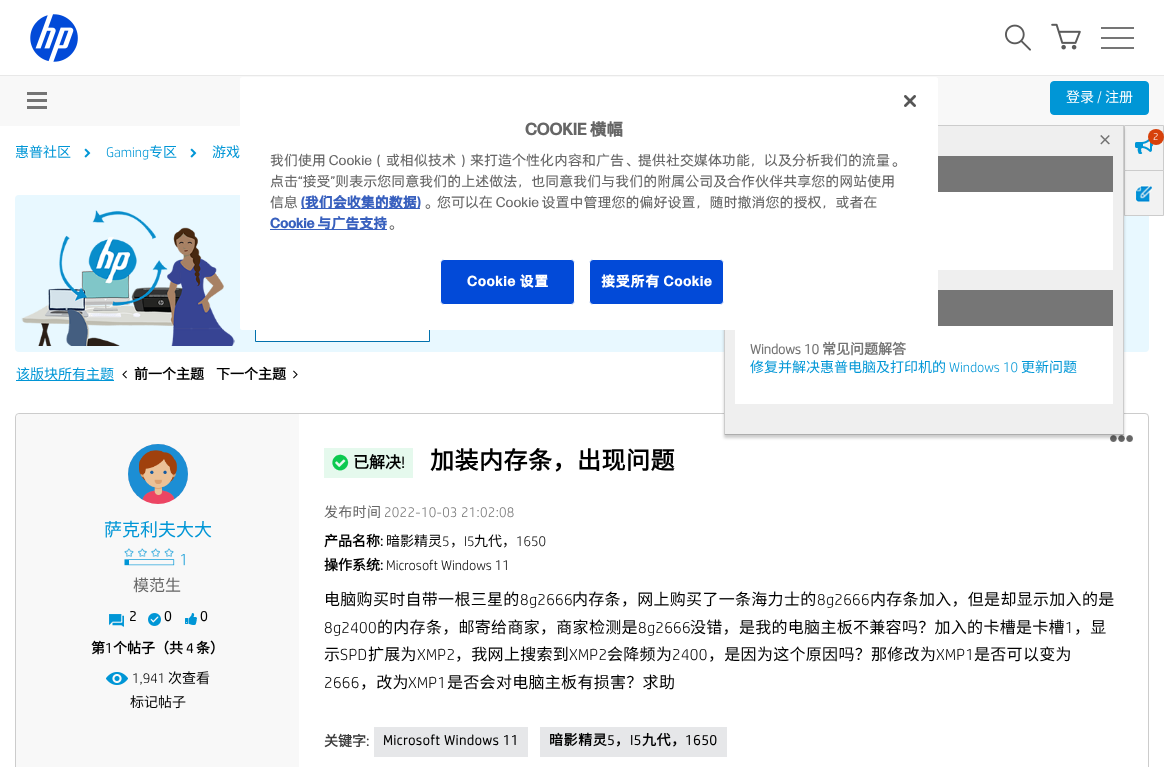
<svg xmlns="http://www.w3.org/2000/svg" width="1164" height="767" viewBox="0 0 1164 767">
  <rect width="100%" height="100%" fill="#fff"/>
  <path d="M0 75h1164v1H0z" fill="#e8e8e8"/>
  <image x="30" y="14" width="48" height="48" href="img/1.png"/>
  <image x="1005" y="24" width="26" height="27" href="img/2.png"/>
  <image x="1051" y="23" width="30" height="27" href="img/3.png"/>
  <path d="M1101 37h33v2H1101z" fill="#757575"/>
  <path d="M1101 27h33v2H1101z" fill="#757575"/>
  <path d="M1101 47h33v2H1101z" fill="#757575"/>
  <image x="84" y="148" width="7" height="10" href="img/4.png"/>
  <image x="190" y="148" width="7" height="10" href="img/4.png"/>
  <path d="M0 76h1164v50H0z" fill="#f8f8f8"/>
  <image x="27" y="92" width="20" height="17" href="img/5.png"/>
  <rect x="1050.5" y="81.5" width="98" height="33" rx="3.5" fill="#0096d6" stroke="#0096d6"/>
  <rect x="15" y="195" width="1134" height="157" rx="4" fill="#e8f8ff"/>
  <path d="M1125 126h38v89H1125z" fill="#f2f2f2"/>
  <path d="M1124.5 170.5h39v45H1124.5z" fill="none" stroke="#ccc"/>
  <path d="M1124.5 125.5h39v45H1124.5z" fill="none" stroke="#ccc"/>
  <rect x="15.5" y="413.5" width="1133" height="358" rx="3.5" fill="none" stroke="#ccc"/>
  <image x="1110" y="435" width="23" height="7" href="img/17.png"/>
  <path d="M724 128h400v310H724z" fill="#00000033" filter="blur(1.5px)"/>
  <path d="M725 126h398v308H725z" fill="#efefef"/>
  <path d="M938 125h186v1H938z" fill="#ccc"/>
  <path d="M1123 125h1v310H1123z" fill="#ccc"/>
  <path d="M724 434h400v1H724z" fill="#adadad"/>
  <path d="M724 330h1v105H724z" fill="#ccc"/>
  <path d="M938 156h175v36H938z" fill="#767676"/>
  <path d="M938 192h175v78H938z" fill="#fff"/>
  <path d="M938 290h175v36H938z" fill="#767676"/>
  <path d="M735 326h378v78H735z" fill="#fff"/>
  <image x="1135" y="139" width="18" height="15" href="img/6.png"/>
  <circle cx="1156" cy="137" r="8" fill="#d7410b"/>
  <image x="1136" y="185" width="16" height="17" href="img/7.png"/>
  <image x="21" y="210" width="214" height="136" href="img/8.png"/>
  <path d="M256 330h173v11H256z" fill="#fff"/>
  <path d="M255.5 300.5h174v41H255.5z" fill="none" stroke="#0171ad"/>
  <path d="M16 380h98v1H16z" fill="#0195d5"/>
  <image x="122" y="370" width="5" height="9" href="img/9.png"/>
  <image x="293" y="370" width="5" height="9" href="img/10.png"/>
  <path d="M20 414H299V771H20C18 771 16 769 16 767V418C16 416 18 414 20 414Z" fill="#f8f8f8"/>
  <image x="128" y="444" width="60" height="60" href="img/11.png"/>
  <image x="124" y="548" width="61" height="18" href="img/12.png"/>
  <image x="109" y="614" width="15" height="13" href="img/13.png"/>
  <image x="148" y="613" width="13" height="13" href="img/14.png"/>
  <image x="185" y="613" width="12" height="12" href="img/15.png"/>
  <image x="106" y="672" width="22" height="13" href="img/16.png"/>
  <path d="M324 448h89v30H324z" fill="#e5f9ed"/>
  <image x="332" y="454" width="17" height="17" href="img/18.png"/>
  <path d="M374 727h154v30H374z" fill="#e6e7e9"/>
  <path d="M540 727h187v30H540z" fill="#e6e7e9"/>
  <rect x="240" y="77" width="698" height="253" rx="2.5" fill="#fff"/>
  <image x="904" y="95" width="12" height="12" href="img/19.png"/>
  <path d="M301 208h119v1H301z" fill="#3860be"/>
  <path d="M270 229h117v1H270z" fill="#3860be"/>
  <rect x="440.5" y="259.5" width="134" height="45" rx="3.5" fill="#024ad8" stroke="#fff"/>
  <rect x="589.5" y="259.5" width="134" height="45" rx="3.5" fill="#024ad8" stroke="#fff"/>
  <text x="15" y="157" font-family="Noto Sans CJK SC" font-size="14" fill="#0096d6">惠普社区</text>
  <text x="106" y="157" font-family="'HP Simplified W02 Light'" font-size="14" font-weight="300" fill="#0096d6">Gaming</text>
  <g font-family="Noto Sans CJK SC" font-size="14" fill="#0096d6">
    <text x="149" y="157">专区</text>
    <text x="212" y="157">游戏</text>
  </g>
  <text x="1066" y="102" font-family="Noto Sans CJK SC" font-size="14" fill="#fff">登录</text>
  <text x="1097" y="102" font-family="'HP Simplified W02 Light'" font-size="14" font-weight="300" fill="#fff">/</text>
  <text x="1105" y="102" font-family="Noto Sans CJK SC" font-size="14" fill="#fff">注册</text>
  <text x="1097" y="150" font-family="'HP Simplified W02 Light'" font-size="30" font-weight="300" fill="#747474">×</text>
  <text x="750" y="354" font-family="'HP Simplified W02 Light'" font-size="14" font-weight="bold" fill="#747474">Windows 10</text>
  <text x="822" y="354" font-family="Noto Sans CJK SC" font-size="14" font-weight="bold" fill="#747474">常见问题解答</text>
  <text x="750" y="372" font-family="Noto Sans CJK SC" font-size="14" fill="#0096d6">修复并解决惠普电脑及打印机的</text>
  <text x="949" y="372" font-family="'HP Simplified W02 Light'" font-size="14" font-weight="300" fill="#0096d6">Windows 10</text>
  <text x="1021" y="372" font-family="Noto Sans CJK SC" font-size="14" fill="#0096d6">更新问题</text>
  <text x="1153" y="140" font-family="'HP Simplified W02 Light'" font-size="10" font-weight="300" fill="#fff">2</text>
  <text x="16" y="379" font-family="Noto Sans CJK SC" font-size="14" fill="#0096d6">该版块所有主题</text>
  <g font-family="Noto Sans CJK SC" font-size="14" font-weight="bold" fill="#000">
    <text x="134" y="379">前一个主题</text>
    <text x="216" y="379">下一个主题</text>
  </g>
  <text x="104" y="536" font-family="Noto Sans CJK SC" font-size="18" fill="#0096d6">萨克利夫大大</text>
  <text x="133" y="591" font-family="Noto Sans CJK SC" font-size="16" fill="#666">模范生</text>
  <g font-family="'HP Simplified W02 Light'" font-size="14" font-weight="bold" fill="#000">
    <text x="129" y="621">2</text>
    <text x="164" y="621">0</text>
    <text x="200" y="621">0</text>
  </g>
  <text x="91" y="653" font-family="Noto Sans CJK SC" font-size="14" font-weight="bold" fill="#000">第</text>
  <text x="105" y="653" font-family="'HP Simplified W02 Light'" font-size="14" font-weight="bold" fill="#000">1</text>
  <text x="113" y="653" font-family="Noto Sans CJK SC" font-size="14" font-weight="bold" fill="#000">个帖子（共</text>
  <text x="186" y="653" font-family="'HP Simplified W02 Light'" font-size="14" font-weight="bold" fill="#000">4</text>
  <text x="196" y="653" font-family="Noto Sans CJK SC" font-size="14" font-weight="bold" fill="#000">条）</text>
  <text x="132" y="683" font-family="'HP Simplified W02 Light'" font-size="14" font-weight="300" fill="#000">1,941</text>
  <g font-family="Noto Sans CJK SC" font-size="14" fill="#000">
    <text x="168" y="683">次查看</text>
    <text x="130" y="707">标记帖子</text>
  </g>
  <text x="353" y="468" font-family="Noto Sans CJK SC" font-size="16" font-weight="bold" fill="#000">已解决</text>
  <text x="401" y="468" font-family="'HP Simplified W02 Light'" font-size="16" font-weight="bold" fill="#000">!</text>
  <text x="430" y="469" font-family="Noto Sans CJK SC" font-size="24" font-weight="bold" letter-spacing="0.5" fill="#000">加装内存条，出现问题</text>
  <text x="324" y="517" font-family="Noto Sans CJK SC" font-size="14" letter-spacing="0.3" fill="#666">发布时间</text>
  <text x="384" y="517" font-family="'HP Simplified W02 Light'" font-size="14" font-weight="300" letter-spacing="0.3" fill="#747474">2022-10-03 21:02:08</text>
  <text x="324" y="546" font-family="Noto Sans CJK SC" font-size="14" font-weight="bold" fill="#000">产品名称</text>
  <text x="380" y="546" font-family="'HP Simplified W02 Light'" font-size="14" font-weight="bold" fill="#000">:</text>
  <text x="386" y="546" font-family="Noto Sans CJK SC" font-size="14" fill="#000">暗影精灵</text>
  <text x="442" y="546" font-family="'HP Simplified W02 Light'" font-size="14" font-weight="300" fill="#000">5</text>
  <text x="450" y="546" font-family="Noto Sans CJK SC" font-size="14" fill="#000">，</text>
  <text x="464" y="546" font-family="'HP Simplified W02 Light'" font-size="14" font-weight="300" fill="#000">I5</text>
  <text x="474" y="546" font-family="Noto Sans CJK SC" font-size="14" fill="#000">九代，</text>
  <text x="516" y="546" font-family="'HP Simplified W02 Light'" font-size="14" font-weight="300" fill="#000">1650</text>
  <text x="324" y="570" font-family="Noto Sans CJK SC" font-size="14" font-weight="bold" fill="#000">操作系统</text>
  <text x="380" y="570" font-family="'HP Simplified W02 Light'" font-size="14" font-weight="bold" fill="#000">:</text>
  <text x="386" y="570" font-family="'HP Simplified W02 Light'" font-size="14" font-weight="300" fill="#000">Microsoft Windows 11</text>
  <text x="324" y="605" font-family="Noto Sans CJK SC" font-size="16" letter-spacing="0.3" fill="#000">电脑购买时自带一根三星的</text>
  <text x="520" y="605" font-family="'HP Simplified W02 Light'" font-size="16" font-weight="300" letter-spacing="0.3" fill="#000">8g2666</text>
  <text x="572" y="605" font-family="Noto Sans CJK SC" font-size="16" letter-spacing="0.3" fill="#000">内存条，网上购买了一条海力士的</text>
  <text x="817" y="605" font-family="'HP Simplified W02 Light'" font-size="16" font-weight="300" letter-spacing="0.3" fill="#000">8g2666</text>
  <text x="870" y="605" font-family="Noto Sans CJK SC" font-size="16" letter-spacing="0.3" fill="#000">内存条加入，但是却显示加入的是</text>
  <text x="324" y="633" font-family="'HP Simplified W02 Light'" font-size="16" font-weight="300" letter-spacing="0.3" fill="#000">8g2400</text>
  <text x="377" y="633" font-family="Noto Sans CJK SC" font-size="16" letter-spacing="0.3" fill="#000">的内存条，邮寄给商家，商家检测是</text>
  <text x="638" y="633" font-family="'HP Simplified W02 Light'" font-size="16" font-weight="300" letter-spacing="0.3" fill="#000">8g2666</text>
  <text x="690" y="633" font-family="Noto Sans CJK SC" font-size="16" letter-spacing="0.3" fill="#000">没错，是我的电脑主板不兼容吗？加入的卡槽是卡槽</text>
  <text x="1065" y="633" font-family="'HP Simplified W02 Light'" font-size="16" font-weight="300" letter-spacing="0.3" fill="#000">1</text>
  <g font-family="Noto Sans CJK SC" font-size="16" letter-spacing="0.3" fill="#000">
    <text x="1074" y="633">，显</text>
    <text x="324" y="660">示</text>
  </g>
  <text x="340" y="660" font-family="'HP Simplified W02 Light'" font-size="16" font-weight="300" letter-spacing="0.3" fill="#000">SPD</text>
  <text x="368" y="660" font-family="Noto Sans CJK SC" font-size="16" letter-spacing="0.3" fill="#000">扩展为</text>
  <text x="417" y="660" font-family="'HP Simplified W02 Light'" font-size="16" font-weight="300" letter-spacing="0.3" fill="#000">XMP2</text>
  <text x="455" y="660" font-family="Noto Sans CJK SC" font-size="16" letter-spacing="0.3" fill="#000">，我网上搜索到</text>
  <text x="569" y="660" font-family="'HP Simplified W02 Light'" font-size="16" font-weight="300" letter-spacing="0.3" fill="#000">XMP2</text>
  <text x="607" y="660" font-family="Noto Sans CJK SC" font-size="16" letter-spacing="0.3" fill="#000">会降频为</text>
  <text x="672" y="660" font-family="'HP Simplified W02 Light'" font-size="16" font-weight="300" letter-spacing="0.3" fill="#000">2400</text>
  <text x="708" y="660" font-family="Noto Sans CJK SC" font-size="16" letter-spacing="0.3" fill="#000">，是因为这个原因吗？那修改为</text>
  <text x="936" y="660" font-family="'HP Simplified W02 Light'" font-size="16" font-weight="300" letter-spacing="0.3" fill="#000">XMP1</text>
  <text x="974" y="660" font-family="Noto Sans CJK SC" font-size="16" letter-spacing="0.3" fill="#000">是否可以变为</text>
  <text x="324" y="688" font-family="'HP Simplified W02 Light'" font-size="16" font-weight="300" letter-spacing="0.3" fill="#000">2666</text>
  <text x="360" y="688" font-family="Noto Sans CJK SC" font-size="16" letter-spacing="0.3" fill="#000">，改为</text>
  <text x="408" y="688" font-family="'HP Simplified W02 Light'" font-size="16" font-weight="300" letter-spacing="0.3" fill="#000">XMP1</text>
  <text x="447" y="688" font-family="Noto Sans CJK SC" font-size="16" letter-spacing="0.3" fill="#000">是否会对电脑主板有损害？求助</text>
  <text x="324" y="746" font-family="Noto Sans CJK SC" font-size="14" font-weight="bold" fill="#3e3e3e">关键字</text>
  <text x="366" y="746" font-family="'HP Simplified W02 Light'" font-size="14" font-weight="bold" fill="#3e3e3e">:</text>
  <text x="383" y="745" font-family="'HP Simplified W02 Light'" font-size="14" font-weight="bold" letter-spacing="0.6" fill="#000">Microsoft Windows 11</text>
  <text x="549" y="745" font-family="Noto Sans CJK SC" font-size="14" font-weight="bold" letter-spacing="0.6" fill="#000">暗影精灵</text>
  <text x="607" y="745" font-family="'HP Simplified W02 Light'" font-size="14" font-weight="bold" letter-spacing="0.6" fill="#000">5</text>
  <text x="615" y="745" font-family="Noto Sans CJK SC" font-size="14" font-weight="bold" letter-spacing="0.6" fill="#000">，</text>
  <text x="630" y="745" font-family="'HP Simplified W02 Light'" font-size="14" font-weight="bold" letter-spacing="0.6" fill="#000">I5</text>
  <text x="642" y="745" font-family="Noto Sans CJK SC" font-size="14" font-weight="bold" letter-spacing="0.6" fill="#000">九代，</text>
  <text x="685" y="745" font-family="'HP Simplified W02 Light'" font-size="14" font-weight="bold" letter-spacing="0.6" fill="#000">1650</text>
  <text x="525" y="135" font-family="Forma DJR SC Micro" font-size="16.75" font-weight="bold" fill="#666">COOKIE 横幅</text>
  <g font-family="Forma DJR SC Micro" font-size="14" fill="#666">
    <text x="270" y="165">我们使用 Cookie（或相似技术）来打造个性化内容和广告、提供社交媒体功能，以及分析我们的流量。</text>
    <text x="270" y="186">点击“接受”则表示您同意我们的上述做法，也同意我们与我们的附属公司及合作伙伴共享您的网站使用</text>
    <text x="270" y="207">信息</text>
  </g>
  <text x="301" y="207" font-family="Forma DJR SC Micro" font-size="14" font-weight="bold" fill="#3860be">(我们会收集的数据)</text>
  <text x="423" y="207" font-family="Forma DJR SC Micro" font-size="14" fill="#666">。您可以在 Cookie 设置中管理您的偏好设置，随时撤消您的授权，或者在</text>
  <text x="270" y="228" font-family="Forma DJR SC Micro" font-size="14" font-weight="bold" fill="#3860be">Cookie 与广告支持</text>
  <text x="387" y="228" font-family="Forma DJR SC Micro" font-size="14" fill="#666">。</text>
  <g font-family="Forma DJR SC Micro" font-size="14" font-weight="bold" letter-spacing="0.75" fill="#fff">
    <text x="467" y="286">Cookie 设置</text>
    <text x="601" y="286">接受所有 Cookie</text>
  </g>
</svg>
